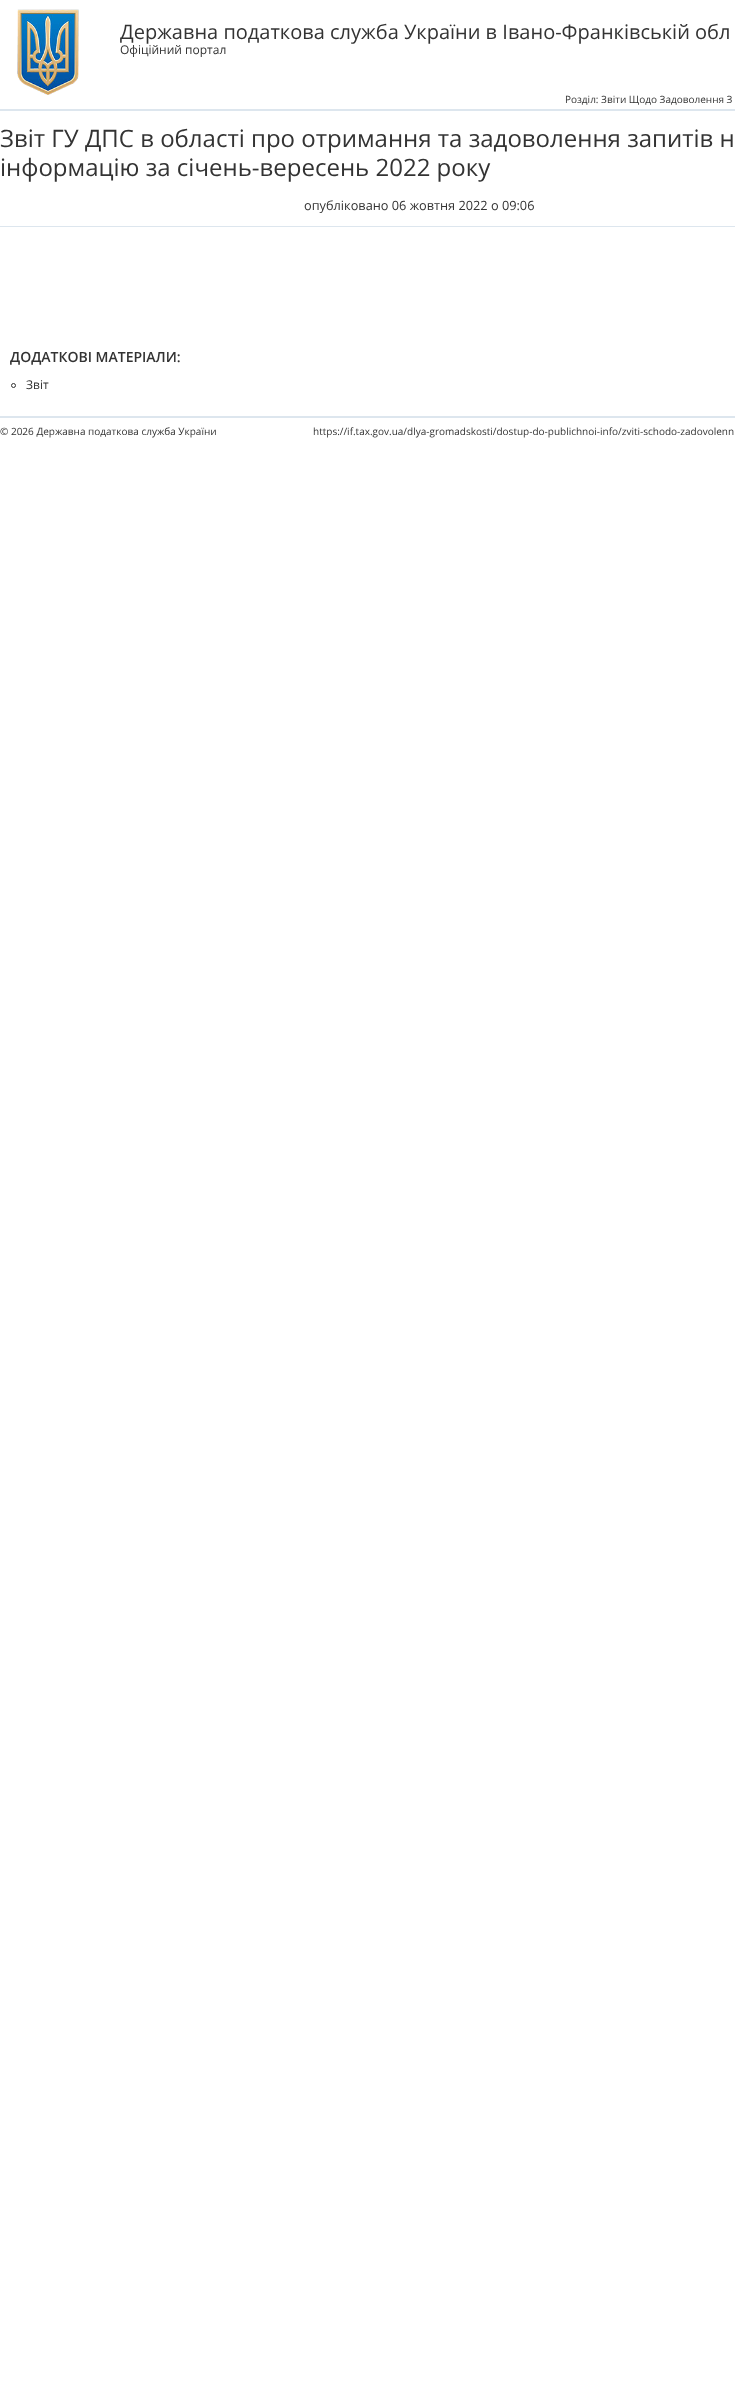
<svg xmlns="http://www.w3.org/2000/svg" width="735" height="2381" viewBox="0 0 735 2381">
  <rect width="100%" height="100%" fill="#fff"/>
  <image x="17" y="9" width="62" height="86" href="img/1.png"/>
  <path d="M0 109h735v2H0z" fill="#dde6ee"/>
  <path d="M0 226h735v1H0z" fill="#dde6ee"/>
  <circle cx="13.5" cy="385.5" r="2" fill="none" stroke="#333"/>
  <path d="M0 416h735v2H0z" fill="#dde6ee"/>
  <text x="120" y="39" font-family="Open Sans" font-size="20" fill="#333">Державна податкова служба України в Івано-Франківській обл</text>
  <text x="120" y="54" font-family="Open Sans" font-size="12" fill="#333">Офіційний портал</text>
  <text x="565" y="103" font-family="Open Sans" font-size="10" fill="#333">Розділ: Звіти Щодо Задоволення З</text>
  <text x="304" y="210" font-family="Open Sans" font-size="12.75" fill="#333">опубліковано 06 жовтня 2022 о 09:06</text>
  <g font-family="Open Sans" font-size="24" fill="#333">
    <text x="0" y="147">Звіт ГУ ДПС в області про отримання та задоволення запитів н</text>
    <text x="0" y="176">інформацію за січень-вересень 2022 року</text>
  </g>
  <text x="10" y="362" font-family="Open Sans" font-size="14" font-weight="600" fill="#333">ДОДАТКОВІ МАТЕРІАЛИ:</text>
  <text x="26" y="389" font-family="Open Sans" font-size="12" fill="#333">Звіт</text>
  <g font-family="Open Sans" font-size="10" fill="#333">
    <text x="0" y="435">© 2026 Державна податкова служба України</text>
    <text x="313" y="435">https://if.tax.gov.ua/dlya-gromadskosti/dostup-do-publichnoi-info/zviti-schodo-zadovolenn</text>
  </g>
</svg>
